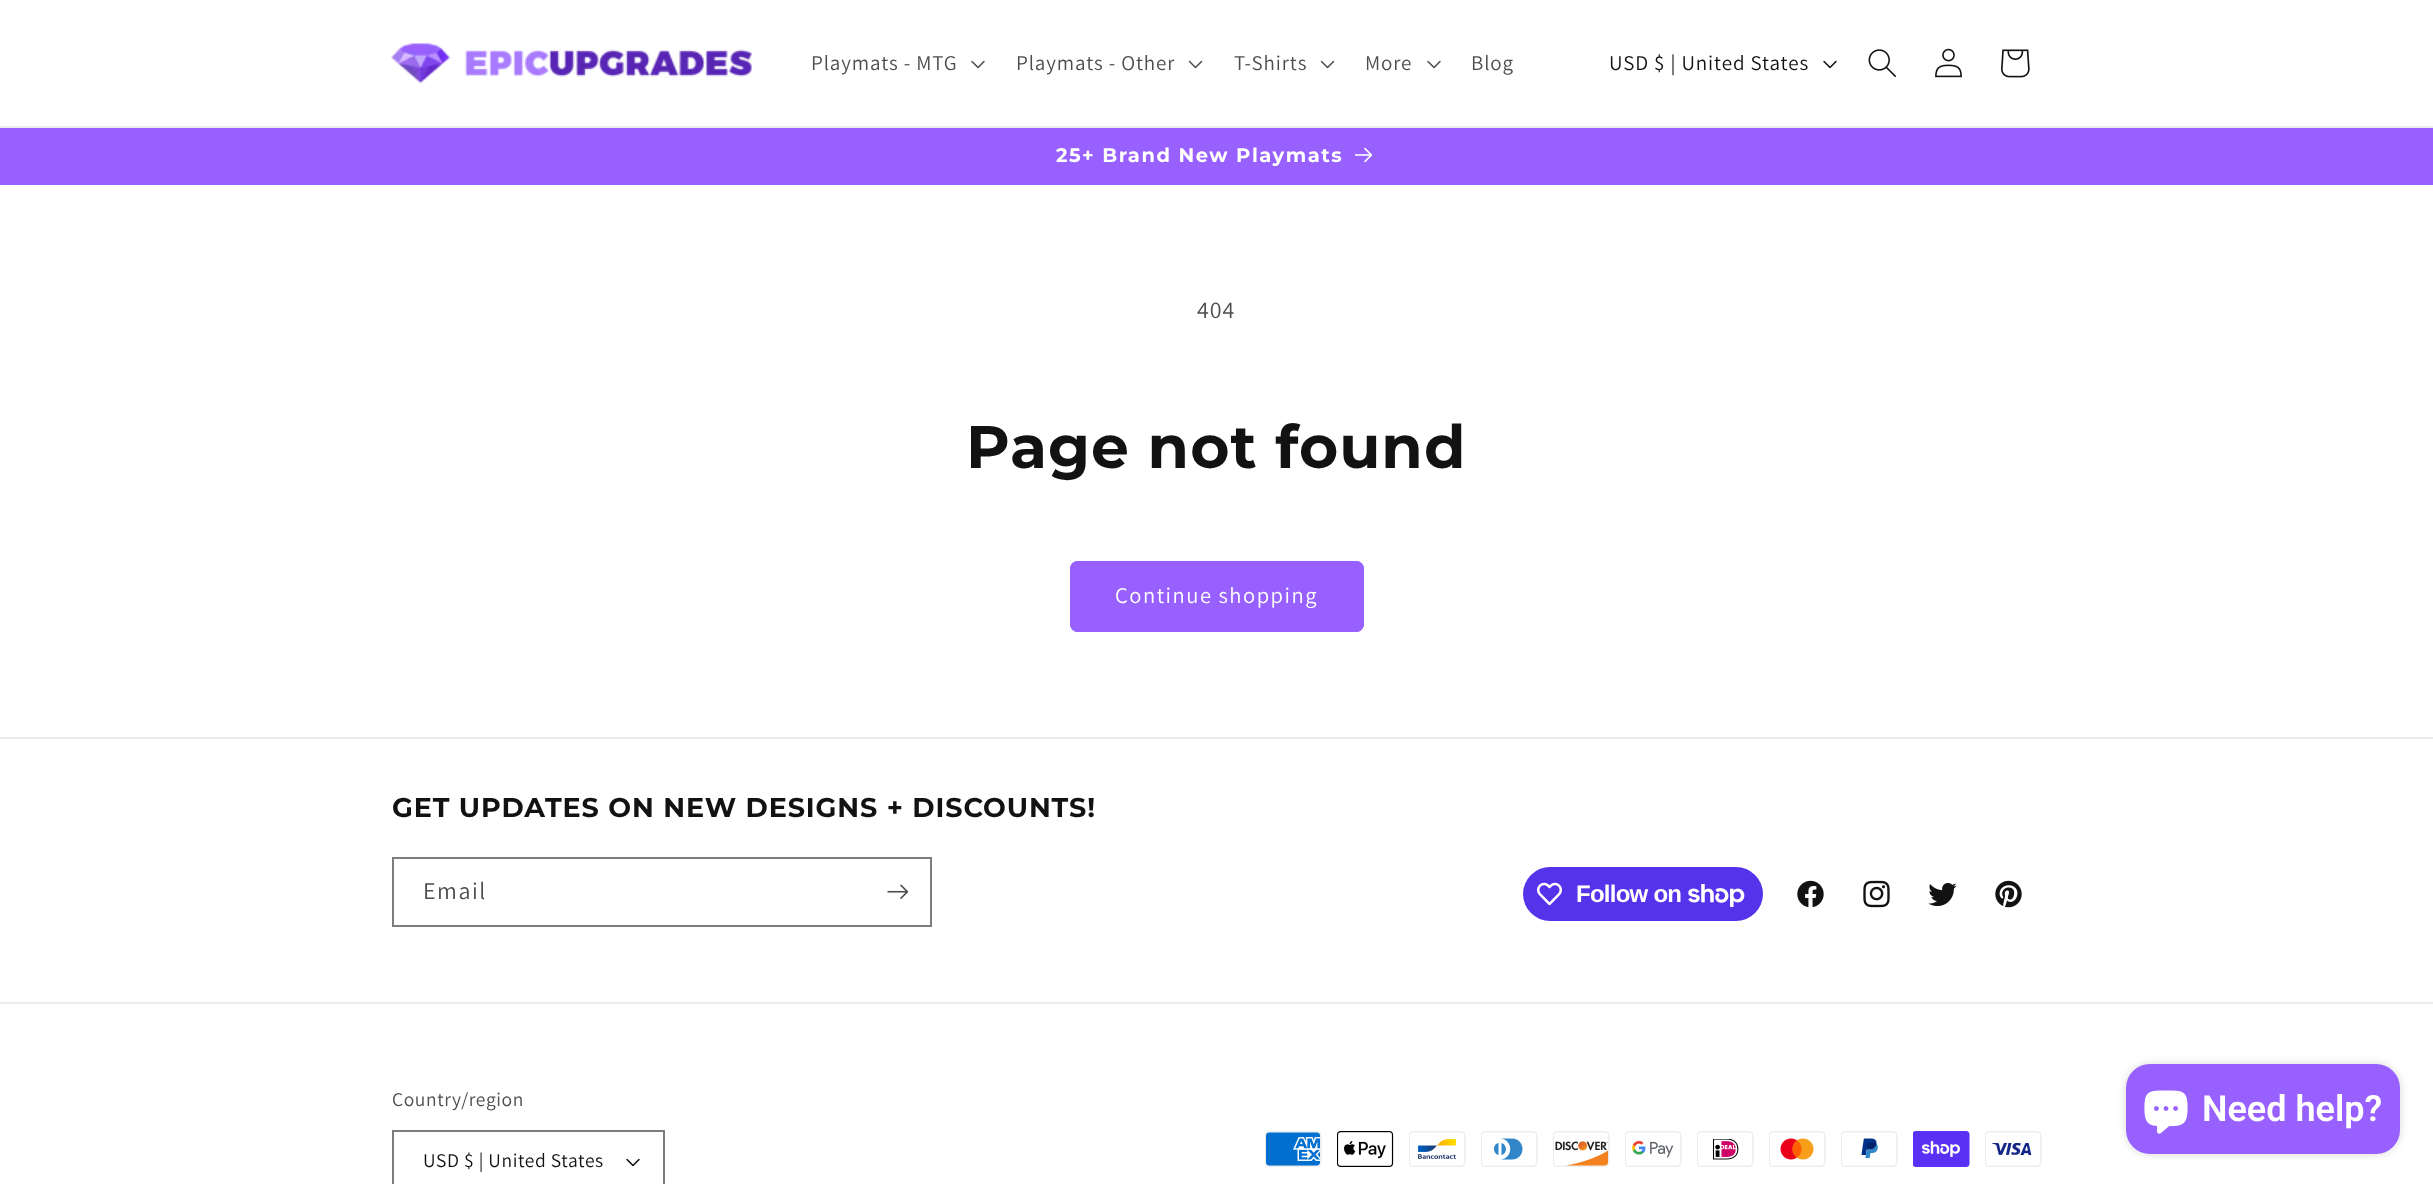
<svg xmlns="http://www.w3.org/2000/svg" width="2433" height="1184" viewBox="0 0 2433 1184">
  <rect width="100%" height="100%" fill="#fff"/>
  <path d="M0 126h2433v2H0z" fill="#ececec"/>
  <image x="391" y="43" width="361" height="40" href="img/1.png"/>
  <image x="971" y="60" width="14" height="9" href="img/2.png"/>
  <image x="1188" y="60" width="15" height="9" href="img/3.png"/>
  <image x="1320" y="60" width="15" height="9" href="img/3.png"/>
  <image x="1427" y="60" width="14" height="9" href="img/2.png"/>
  <image x="1823" y="60" width="14" height="9" href="img/4.png"/>
  <image x="1868" y="49" width="28" height="28" href="img/5.png"/>
  <image x="1935" y="48" width="27" height="30" href="img/6.png"/>
  <image x="2001" y="49" width="29" height="29" href="img/7.png"/>
  <path d="M0 128h2433v57H0z" fill="#9861ff"/>
  <image x="1355" y="147" width="18" height="16" href="img/8.png"/>
  <rect x="1070" y="561" width="294" height="71" rx="8" fill="#9861ff"/>
  <rect x="1071" y="562" width="292" height="69" rx="7" fill="none" stroke="#9861ff" stroke-width="2"/>
  <path d="M0 737h2433v2H0z" fill="#ececec"/>
  <path d="M393 858h538v68H393z" fill="none" stroke="#7d7d7d" stroke-width="2"/>
  <image x="887" y="884" width="22" height="15" href="img/9.png"/>
  <rect x="1523" y="867" width="240" height="54" rx="27" fill="#5433eb"/>
  <image x="1537" y="882" width="25" height="24" href="img/10.png"/>
  <image x="1688" y="884" width="57" height="23" href="img/11.png"/>
  <image x="1797" y="880" width="27" height="28" href="img/12.png"/>
  <image x="1863" y="880" width="27" height="28" href="img/13.png"/>
  <image x="1928" y="883" width="29" height="24" href="img/14.png"/>
  <image x="1995" y="880" width="27" height="28" href="img/15.png"/>
  <path d="M0 1002h2433v2H0z" fill="#ececec"/>
  <image x="626" y="1158" width="14" height="9" href="img/4.png"/>
  <path d="M393 1131h271v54H393z" fill="none" stroke="#7d7d7d" stroke-width="2"/>
  <image x="1265" y="1131" width="57" height="36" href="img/16.png"/>
  <image x="1337" y="1131" width="57" height="36" href="img/17.png"/>
  <image x="1409" y="1131" width="57" height="36" href="img/18.png"/>
  <image x="1481" y="1131" width="57" height="36" href="img/19.png"/>
  <image x="1553" y="1131" width="57" height="36" href="img/20.png"/>
  <image x="1625" y="1131" width="57" height="36" href="img/21.png"/>
  <image x="1697" y="1131" width="57" height="36" href="img/22.png"/>
  <image x="1769" y="1131" width="57" height="36" href="img/23.png"/>
  <image x="1841" y="1131" width="57" height="36" href="img/24.png"/>
  <image x="1913" y="1131" width="57" height="36" href="img/25.png"/>
  <image x="1985" y="1131" width="57" height="36" href="img/26.png"/>
  <rect x="2126" y="1064" width="274" height="90" rx="24" fill="#00000026" filter="blur(4px)"/>
  <rect x="2126" y="1064" width="274" height="90" rx="24" fill="#9861ff"/>
  <image x="2144" y="1090" width="44" height="44" href="img/27.png"/>
  <g font-family="Assistant" font-size="21" letter-spacing="0.9" fill="#4d4d4d">
    <text x="811" y="70">Playmats - MTG</text>
    <text x="1016" y="70">Playmats - Other</text>
    <text x="1234" y="70">T-Shirts</text>
    <text x="1365" y="70">More</text>
    <text x="1471" y="70">Blog</text>
  </g>
  <text x="1609" y="70" font-family="Assistant" font-size="21" letter-spacing="0.9" fill="#121212">USD $ | United States</text>
  <text x="1056" y="162" font-family="Montserrat" font-size="19.5" font-weight="bold" letter-spacing="1.5" fill="#fff">25+ Brand New Playmats</text>
  <text x="1197" y="318" font-family="Assistant" font-size="24" letter-spacing="0.9" fill="#4d4d4d">404</text>
  <text x="966" y="468" font-family="Montserrat" font-size="60" font-weight="bold" letter-spacing="0.9" fill="#121212">Page not found</text>
  <text x="1115" y="603" font-family="Assistant" font-size="22.5" letter-spacing="1.5" fill="#fff">Continue shopping</text>
  <text x="392" y="817" font-family="Montserrat" font-size="27" font-weight="bold" letter-spacing="0.9" fill="#121212">GET UPDATES ON NEW DESIGNS + DISCOUNTS!</text>
  <text x="423" y="899" font-family="Assistant" font-size="24" letter-spacing="1.5" fill="#4d4d4d">Email</text>
  <text x="1576" y="902" font-family="Liberation Sans" font-size="24" font-weight="bold" letter-spacing="-0.75" fill="#fff">Follow on</text>
  <text x="392" y="1106" font-family="Assistant" font-size="19.5" letter-spacing="0.6" fill="#4d4d4d">Country/region</text>
  <text x="423" y="1167" font-family="Assistant" font-size="19.5" letter-spacing="0.6" fill="#121212">USD $ | United States</text>
  <text x="2202" y="1121" font-family="Roboto" font-size="36" font-weight="600" fill="#fff">Need help?</text>
</svg>
